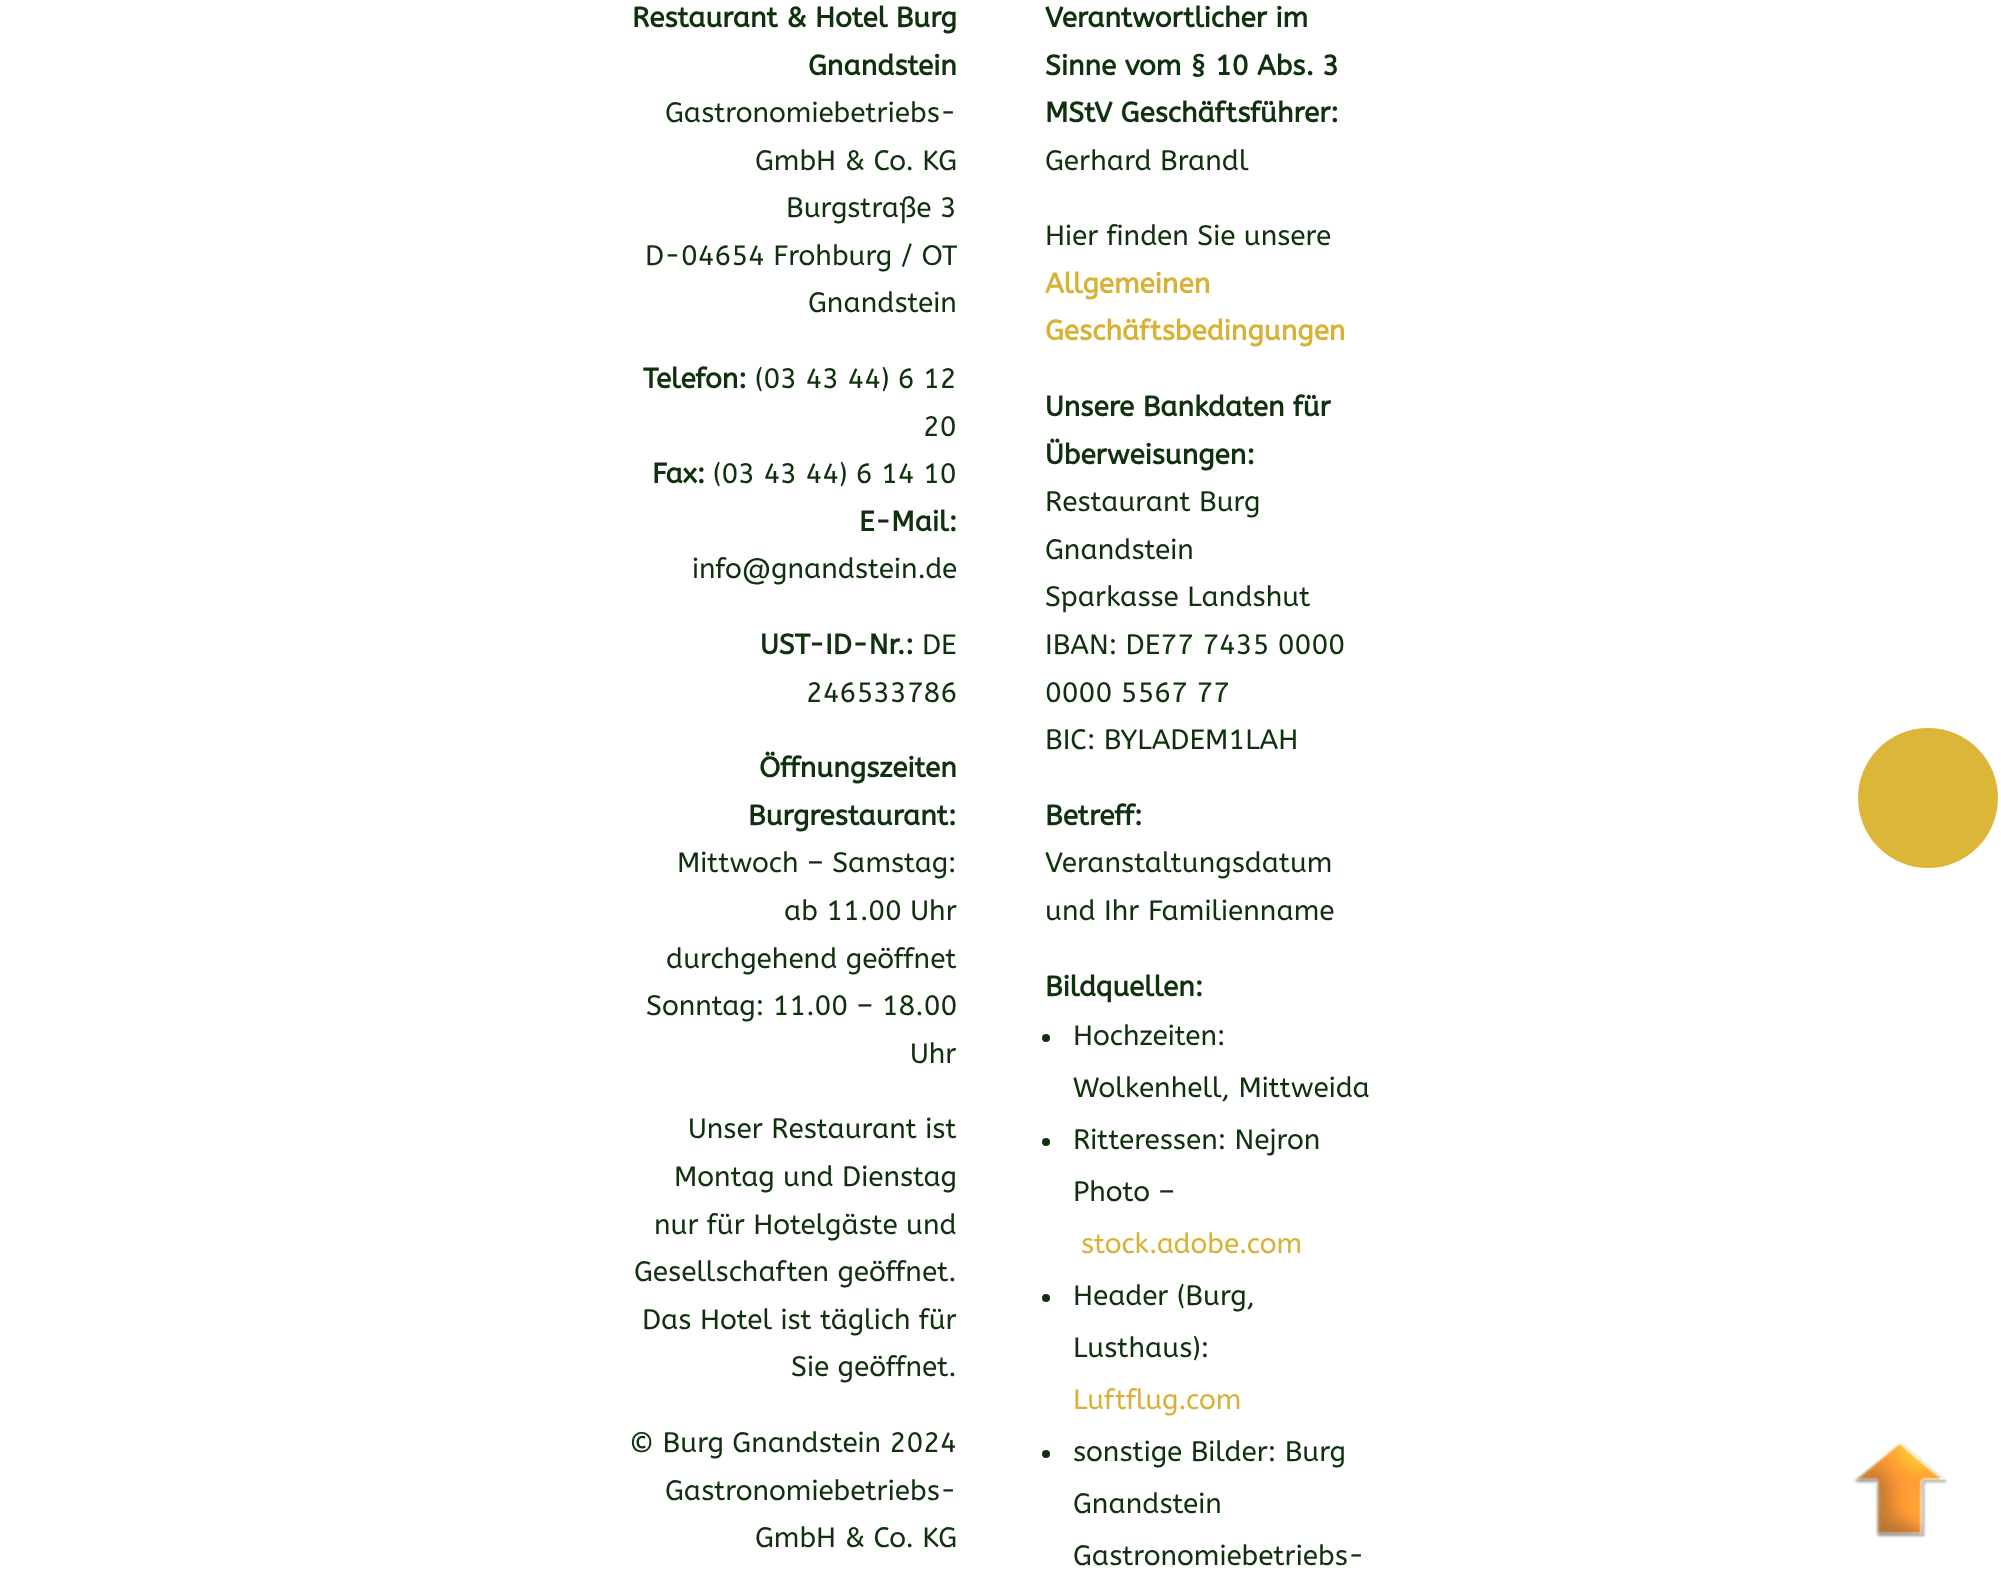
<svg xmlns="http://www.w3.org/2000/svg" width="2001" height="1596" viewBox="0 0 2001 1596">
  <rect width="100%" height="100%" fill="#fff"/>
  <circle cx="1046" cy="1038" r="4" fill="#10310d"/>
  <circle cx="1046" cy="1142" r="4" fill="#10310d"/>
  <circle cx="1046" cy="1298" r="4" fill="#10310d"/>
  <circle cx="1046" cy="1454" r="4" fill="#10310d"/>
  <circle cx="1928" cy="798" r="70" fill="#dcb638"/>
  <image x="1853" y="1442" width="95" height="96" href="img/1.png"/>
  <g font-family="ABeeZee" font-size="28" font-weight="bold" fill="#10310d">
    <text x="632" y="27">Restaurant &amp; Hotel Burg</text>
    <text x="808" y="75">Gnandstein</text>
  </g>
  <g font-family="ABeeZee" font-size="28" fill="#10310d">
    <text x="665" y="122">Gastronomiebetriebs-</text>
    <text x="755" y="170">GmbH &amp; Co. KG</text>
    <text x="786" y="217">Burgstraße 3</text>
    <text x="645" y="265">D-04654 Frohburg / OT</text>
    <text x="808" y="312">Gnandstein</text>
  </g>
  <text x="643" y="388" font-family="ABeeZee" font-size="28" font-weight="bold" fill="#10310d">Telefon:</text>
  <g font-family="ABeeZee" font-size="28" fill="#10310d">
    <text x="755" y="388">(03 43 44) 6 12</text>
    <text x="923" y="436">20</text>
  </g>
  <text x="652" y="483" font-family="ABeeZee" font-size="28" font-weight="bold" fill="#10310d">Fax:</text>
  <text x="713" y="483" font-family="ABeeZee" font-size="28" fill="#10310d">(03 43 44) 6 14 10</text>
  <text x="859" y="531" font-family="ABeeZee" font-size="28" font-weight="bold" fill="#10310d">E-Mail:</text>
  <text x="692" y="578" font-family="ABeeZee" font-size="28" fill="#10310d">info@gnandstein.de</text>
  <text x="760" y="654" font-family="ABeeZee" font-size="28" font-weight="bold" fill="#10310d">UST-ID-Nr.:</text>
  <g font-family="ABeeZee" font-size="28" fill="#10310d">
    <text x="922" y="654">DE</text>
    <text x="806" y="702">246533786</text>
  </g>
  <g font-family="ABeeZee" font-size="28" font-weight="bold" fill="#10310d">
    <text x="759" y="777">Öffnungszeiten</text>
    <text x="748" y="825">Burgrestaurant:</text>
  </g>
  <g font-family="ABeeZee" font-size="28" fill="#10310d">
    <text x="677" y="872">Mittwoch – Samstag:</text>
    <text x="784" y="920">ab 11.00 Uhr</text>
    <text x="666" y="968">durchgehend geöffnet</text>
    <text x="646" y="1015">Sonntag: 11.00 – 18.00</text>
    <text x="910" y="1063">Uhr</text>
    <text x="688" y="1138">Unser Restaurant ist</text>
    <text x="674" y="1186">Montag und Dienstag</text>
    <text x="654" y="1234">nur für Hotelgäste und</text>
    <text x="634" y="1281">Gesellschaften geöffnet.</text>
    <text x="642" y="1329">Das Hotel ist täglich für</text>
    <text x="791" y="1376">Sie geöffnet.</text>
    <text x="629" y="1452">© Burg Gnandstein 2024</text>
    <text x="665" y="1500">Gastronomiebetriebs-</text>
    <text x="755" y="1547">GmbH &amp; Co. KG</text>
  </g>
  <g font-family="ABeeZee" font-size="28" font-weight="bold" fill="#10310d">
    <text x="1045" y="27">Verantwortlicher im</text>
    <text x="1045" y="75">Sinne vom § 10 Abs. 3</text>
    <text x="1045" y="122">MStV Geschäftsführer:</text>
  </g>
  <g font-family="ABeeZee" font-size="28" fill="#10310d">
    <text x="1045" y="170">Gerhard Brandl</text>
    <text x="1045" y="245">Hier finden Sie unsere</text>
  </g>
  <g font-family="ABeeZee" font-size="28" font-weight="bold" fill="#d8b236">
    <text x="1045" y="293">Allgemeinen</text>
    <text x="1045" y="340">Geschäftsbedingungen</text>
  </g>
  <g font-family="ABeeZee" font-size="28" font-weight="bold" fill="#10310d">
    <text x="1045" y="416">Unsere Bankdaten für</text>
    <text x="1045" y="464">Überweisungen:</text>
  </g>
  <g font-family="ABeeZee" font-size="28" fill="#10310d">
    <text x="1045" y="511">Restaurant Burg</text>
    <text x="1045" y="559">Gnandstein</text>
    <text x="1045" y="606">Sparkasse Landshut</text>
    <text x="1045" y="654">IBAN: DE77 7435 0000</text>
    <text x="1045" y="702">0000 5567 77</text>
    <text x="1045" y="749">BIC: BYLADEM1LAH</text>
  </g>
  <text x="1045" y="825" font-family="ABeeZee" font-size="28" font-weight="bold" fill="#10310d">Betreff:</text>
  <g font-family="ABeeZee" font-size="28" fill="#10310d">
    <text x="1045" y="872">Veranstaltungsdatum</text>
    <text x="1045" y="920">und Ihr Familienname</text>
  </g>
  <text x="1045" y="996" font-family="ABeeZee" font-size="28" font-weight="bold" fill="#10310d">Bildquellen:</text>
  <g font-family="ABeeZee" font-size="28" fill="#10310d">
    <text x="1073" y="1045">Hochzeiten:</text>
    <text x="1073" y="1097">Wolkenhell, Mittweida</text>
    <text x="1073" y="1149">Ritteressen: Nejron</text>
    <text x="1073" y="1201">Photo –</text>
  </g>
  <text x="1081" y="1253" font-family="ABeeZee" font-size="28" fill="#d8b236">stock.adobe.com</text>
  <g font-family="ABeeZee" font-size="28" fill="#10310d">
    <text x="1073" y="1305">Header (Burg,</text>
    <text x="1073" y="1357">Lusthaus):</text>
  </g>
  <text x="1073" y="1409" font-family="ABeeZee" font-size="28" fill="#d8b236">Luftflug.com</text>
  <g font-family="ABeeZee" font-size="28" fill="#10310d">
    <text x="1073" y="1461">sonstige Bilder: Burg</text>
    <text x="1073" y="1513">Gnandstein</text>
    <text x="1073" y="1565">Gastronomiebetriebs-</text>
  </g>
</svg>
